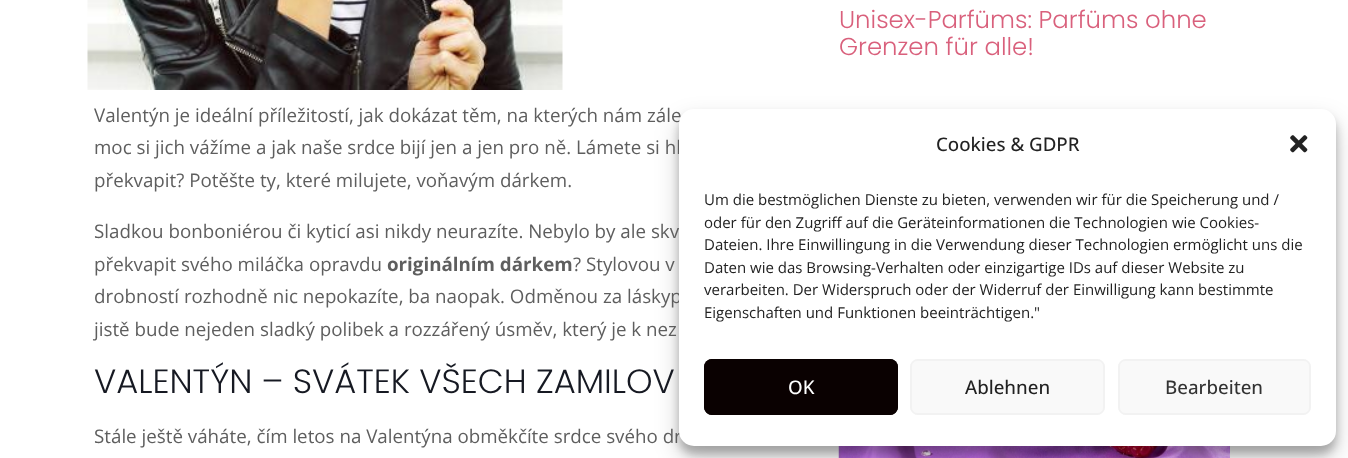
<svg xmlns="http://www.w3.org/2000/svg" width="1348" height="458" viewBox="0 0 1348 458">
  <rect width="100%" height="100%" fill="#fff"/>
  <image x="838" y="446" width="392" height="12" href="img/1.png"/>
  <image x="87" y="0" width="476" height="90" href="img/2.png"/>
  <rect x="679" y="116" width="657" height="338" rx="15" fill="#0000003b" filter="blur(4px)"/>
  <rect x="679" y="121" width="657" height="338" rx="15" fill="#00000030" filter="blur(12.5px)"/>
  <g font-family="Poppins" font-size="24.4" font-weight="300" fill="#d9607c">
    <text x="839" y="28">Unisex-Parfüms: Parfüms ohne</text>
    <text x="839" y="55">Grenzen für alle!</text>
  </g>
  <g font-family="Open Sans" font-size="18.75" fill="#5e5e5e">
    <text x="94" y="122">Valentýn je ideální příležitostí, jak dokázat těm, na kterých nám zále</text>
    <text x="94" y="154">moc si jich vážíme a jak naše srdce bijí jen a jen pro ně. Lámete si hl</text>
    <text x="94" y="187">překvapit? Potěšte ty, které milujete, voňavým dárkem.</text>
    <text x="94" y="238">Sladkou bonboniérou či kyticí asi nikdy neurazíte. Nebylo by ale skv</text>
    <text x="94" y="271">překvapit svého miláčka opravdu</text>
  </g>
  <text x="387" y="271" font-family="Open Sans" font-size="18.75" font-weight="bold" fill="#5e5e5e">originálním dárkem</text>
  <g font-family="Open Sans" font-size="18.75" fill="#5e5e5e">
    <text x="573" y="271">? Stylovou v</text>
    <text x="94" y="303">drobností rozhodně nic nepokazíte, ba naopak. Odměnou za láskyp</text>
    <text x="94" y="336">jistě bude nejeden sladký polibek a rozzářený úsměv, který je k nez</text>
  </g>
  <text x="94" y="393" font-family="Poppins" font-size="33.75" font-weight="300" fill="#161922">VALENTÝN – SVÁTEK VŠECH ZAMILOV</text>
  <text x="94" y="443" font-family="Open Sans" font-size="18.75" fill="#5e5e5e">Stále ještě váháte, čím letos na Valentýna obměkčíte srdce svého dr</text>
  <rect x="679" y="109" width="657" height="337" rx="15" fill="#fff"/>
  <text x="936" y="151" font-family="Open Sans" font-size="18.75" font-weight="500" fill="#222">Cookies &amp; GDPR</text>
  <image x="1290" y="135" width="18" height="18" href="img/3.png"/>
  <g font-family="Open Sans" font-size="15" fill="#222">
    <text x="704" y="205">Um die bestmöglichen Dienste zu bieten, verwenden wir für die Speicherung und /</text>
    <text x="704" y="228">oder für den Zugriff auf die Geräteinformationen die Technologien wie Cookies-</text>
    <text x="704" y="250">Dateien. Ihre Einwillingung in die Verwendung dieser Technologien ermöglicht uns die</text>
    <text x="704" y="273">Daten wie das Browsing-Verhalten oder einzigartige IDs auf dieser Website zu</text>
    <text x="704" y="295">verarbeiten. Der Widerspruch oder der Widerruf der Einwilligung kann bestimmte</text>
    <text x="704" y="318">Eigenschaften und Funktionen beeinträchtigen."</text>
  </g>
  <rect x="704" y="359" width="194" height="56" rx="8" fill="#0a0101"/>
  <rect x="705.5" y="360.5" width="190" height="53" rx="5.5" fill="none" stroke="#0a0101"/>
  <rect x="704.5" y="359.5" width="193" height="55" rx="7.5" fill="none" stroke="#0a0101"/>
  <text x="788" y="394" font-family="Open Sans" font-size="18.75" font-weight="500" fill="#fff">OK</text>
  <rect x="910" y="359" width="195" height="56" rx="8" fill="#f9f9f9"/>
  <rect x="911.5" y="360.5" width="192" height="53" rx="5.5" fill="none" stroke="#f2f2f2"/>
  <rect x="910.5" y="359.5" width="194" height="55" rx="7.5" fill="none" stroke="#f2f2f2"/>
  <text x="965" y="394" font-family="Open Sans" font-size="18.75" font-weight="500" fill="#222">Ablehnen</text>
  <rect x="1118" y="359" width="193" height="56" rx="8" fill="#f9f9f9"/>
  <rect x="1119.5" y="360.5" width="190" height="53" rx="5.5" fill="none" stroke="#f2f2f2"/>
  <rect x="1118.5" y="359.5" width="192" height="55" rx="7.5" fill="none" stroke="#f2f2f2"/>
  <text x="1165" y="394" font-family="Open Sans" font-size="18.75" font-weight="500" fill="#333">Bearbeiten</text>
</svg>
